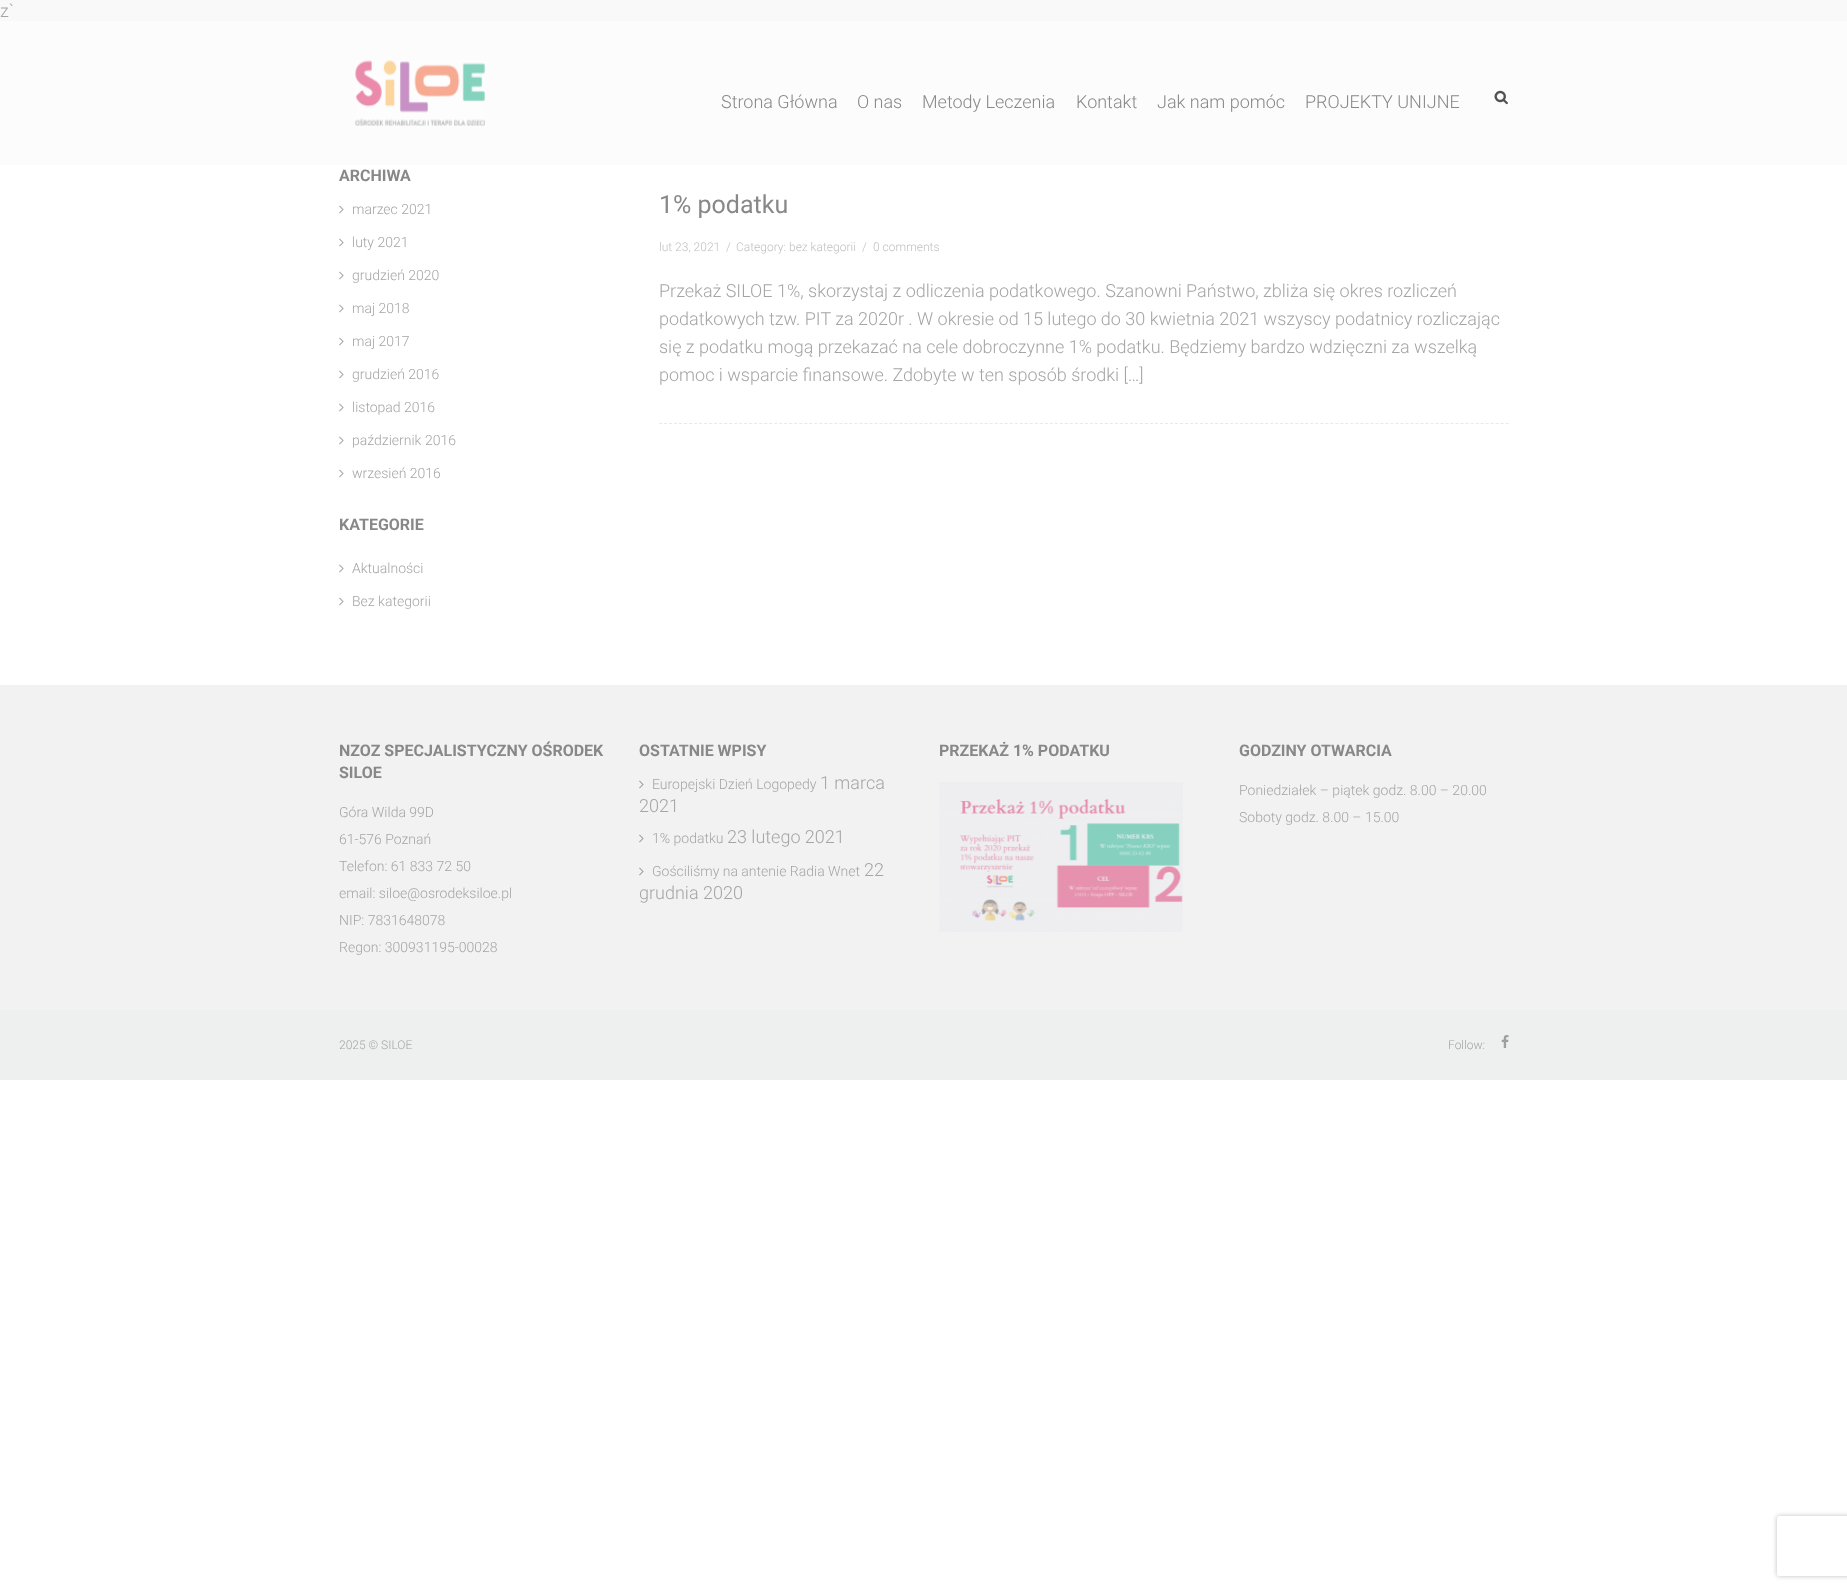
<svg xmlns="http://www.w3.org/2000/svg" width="1847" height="1590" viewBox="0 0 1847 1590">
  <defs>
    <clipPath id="clip1"><path d="M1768 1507H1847V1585H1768ZM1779 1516H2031C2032 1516 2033 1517 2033 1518V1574C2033 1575 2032 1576 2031 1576H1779C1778 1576 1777 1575 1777 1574V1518C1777 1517 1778 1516 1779 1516Z" clip-rule="evenodd"/></clipPath>
  </defs>
  <rect width="100%" height="100%" fill="#f9f9f9"/>
  <path d="M0 165h1847v1425H0z" fill="#fff"/>
  <path d="M0 21h1847v144H0z" fill="#fcfcfc"/>
  <image x="355" y="60" width="130" height="66" href="img/1.png"/>
  <image x="1494" y="90" width="14" height="15" href="img/2.png"/>
  <image x="1494" y="90" width="14" height="15" href="img/3.png"/>
  <image x="339" y="205" width="5" height="9" href="img/4.png"/>
  <image x="339" y="238" width="5" height="9" href="img/4.png"/>
  <image x="339" y="271" width="5" height="9" href="img/4.png"/>
  <image x="339" y="304" width="5" height="9" href="img/4.png"/>
  <image x="339" y="337" width="5" height="9" href="img/4.png"/>
  <image x="339" y="370" width="5" height="9" href="img/4.png"/>
  <image x="339" y="403" width="5" height="9" href="img/4.png"/>
  <image x="339" y="436" width="5" height="9" href="img/4.png"/>
  <image x="339" y="469" width="5" height="9" href="img/4.png"/>
  <image x="339" y="564" width="5" height="9" href="img/4.png"/>
  <image x="339" y="597" width="5" height="9" href="img/4.png"/>
  <path d="M659 423.5H1509" fill="none" stroke="#e9e9e9" stroke-dasharray="3 2.01"/>
  <path d="M0 1010h1847v70H0z" fill="#eeefef"/>
  <path d="M0 685h1847v325H0z" fill="#f2f2f3"/>
  <image x="639" y="780" width="5" height="9" href="img/5.png"/>
  <image x="639" y="834" width="5" height="9" href="img/5.png"/>
  <image x="639" y="867" width="5" height="9" href="img/5.png"/>
  <image x="939" y="782" width="244" height="150" href="img/6.png"/>
  <image x="1501" y="1035" width="8" height="13" href="img/7.png"/>
  <g clip-path="url(#clip1)">
    <rect x="1777" y="1516" width="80" height="60" rx="2" fill="#bdbdbd" filter="blur(2.5px)"/>
  </g>
  <text x="0" y="17" font-family="Roboto" font-size="18" font-weight="300" fill="#a5a5a5">z`</text>
  <g font-family="Roboto" font-size="18" font-weight="300" fill="#888">
    <text x="721" y="108">Strona Główna</text>
    <text x="857" y="108">O nas</text>
    <text x="922" y="108">Metody Leczenia</text>
    <text x="1076" y="108">Kontakt</text>
    <text x="1157" y="108">Jak nam pomóc</text>
    <text x="1305" y="108">PROJEKTY UNIJNE</text>
  </g>
  <text x="339" y="181" font-family="Roboto" font-size="16" font-weight="bold" fill="#888">ARCHIWA</text>
  <g font-family="Roboto" font-size="14" font-weight="300" fill="#a5a5a5">
    <text x="352" y="214">marzec 2021</text>
    <text x="352" y="247">luty 2021</text>
    <text x="352" y="280">grudzień 2020</text>
    <text x="352" y="313">maj 2018</text>
    <text x="352" y="346">maj 2017</text>
    <text x="352" y="379">grudzień 2016</text>
    <text x="352" y="412">listopad 2016</text>
    <text x="352" y="445">październik 2016</text>
    <text x="352" y="478">wrzesień 2016</text>
  </g>
  <text x="339" y="530" font-family="Roboto" font-size="16" font-weight="bold" fill="#888">KATEGORIE</text>
  <g font-family="Roboto" font-size="14" font-weight="300" fill="#a5a5a5">
    <text x="352" y="573">Aktualności</text>
    <text x="352" y="606">Bez kategorii</text>
  </g>
  <text x="659" y="213" font-family="Roboto" font-size="25" fill="#888">1% podatku</text>
  <g font-family="Roboto" font-size="12" font-weight="300" fill="#c0c0c0">
    <text x="659" y="251">lut 23, 2021</text>
    <text x="726" y="251">/</text>
    <text x="736" y="251">Category: bez kategorii</text>
    <text x="862" y="251">/</text>
    <text x="873" y="251">0 comments</text>
  </g>
  <g font-family="Roboto" font-size="18" font-weight="300" fill="#a5a5a5">
    <text x="659" y="297">Przekaż SILOE 1%, skorzystaj z odliczenia podatkowego. Szanowni Państwo, zbliża się okres rozliczeń</text>
    <text x="659" y="325">podatkowych tzw. PIT za 2020r . W okresie od 15 lutego do 30 kwietnia 2021 wszyscy podatnicy rozliczając</text>
    <text x="659" y="353">się z podatku mogą przekazać na cele dobroczynne 1% podatku. Będziemy bardzo wdzięczni za wszelką</text>
    <text x="659" y="381">pomoc i wsparcie finansowe. Zdobyte w ten sposób środki […]</text>
  </g>
  <g font-family="Roboto" font-size="16" font-weight="bold" fill="#888">
    <text x="339" y="756">NZOZ SPECJALISTYCZNY OŚRODEK</text>
    <text x="339" y="778">SILOE</text>
  </g>
  <g font-family="Roboto" font-size="14" font-weight="300" fill="#a5a5a5">
    <text x="339" y="817">Góra Wilda 99D</text>
    <text x="339" y="844">61-576 Poznań</text>
    <text x="339" y="871">Telefon: 61 833 72 50</text>
    <text x="339" y="898">email: siloe@osrodeksiloe.pl</text>
    <text x="339" y="925">NIP: 7831648078</text>
    <text x="339" y="952">Regon: 300931195-00028</text>
  </g>
  <text x="639" y="756" font-family="Roboto" font-size="16" font-weight="bold" fill="#888">OSTATNIE WPISY</text>
  <text x="652" y="789" font-family="Roboto" font-size="14" font-weight="300" fill="#a5a5a5">Europejski Dzień Logopedy</text>
  <g font-family="Roboto" font-size="18" font-weight="300" fill="#a5a5a5">
    <text x="820" y="789">1 marca</text>
    <text x="639" y="812">2021</text>
  </g>
  <text x="652" y="843" font-family="Roboto" font-size="14" font-weight="300" fill="#a5a5a5">1% podatku</text>
  <text x="727" y="843" font-family="Roboto" font-size="18" font-weight="300" fill="#a5a5a5">23 lutego 2021</text>
  <text x="652" y="876" font-family="Roboto" font-size="14" font-weight="300" fill="#a5a5a5">Gościliśmy na antenie Radia Wnet</text>
  <g font-family="Roboto" font-size="18" font-weight="300" fill="#a5a5a5">
    <text x="864" y="876">22</text>
    <text x="639" y="899">grudnia 2020</text>
  </g>
  <g font-family="Roboto" font-size="16" font-weight="bold" fill="#888">
    <text x="939" y="756">PRZEKAŻ 1% PODATKU</text>
    <text x="1239" y="756">GODZINY OTWARCIA</text>
  </g>
  <g font-family="Roboto" font-size="14" font-weight="300" fill="#a5a5a5">
    <text x="1239" y="795">Poniedziałek – piątek godz. 8.00 – 20.00</text>
    <text x="1239" y="822">Soboty godz. 8.00 – 15.00</text>
  </g>
  <g font-family="Roboto" font-size="12" font-weight="300" fill="#a5a5a5">
    <text x="339" y="1049">2025 © SILOE</text>
    <text x="1448" y="1049">Follow:</text>
  </g>
</svg>
